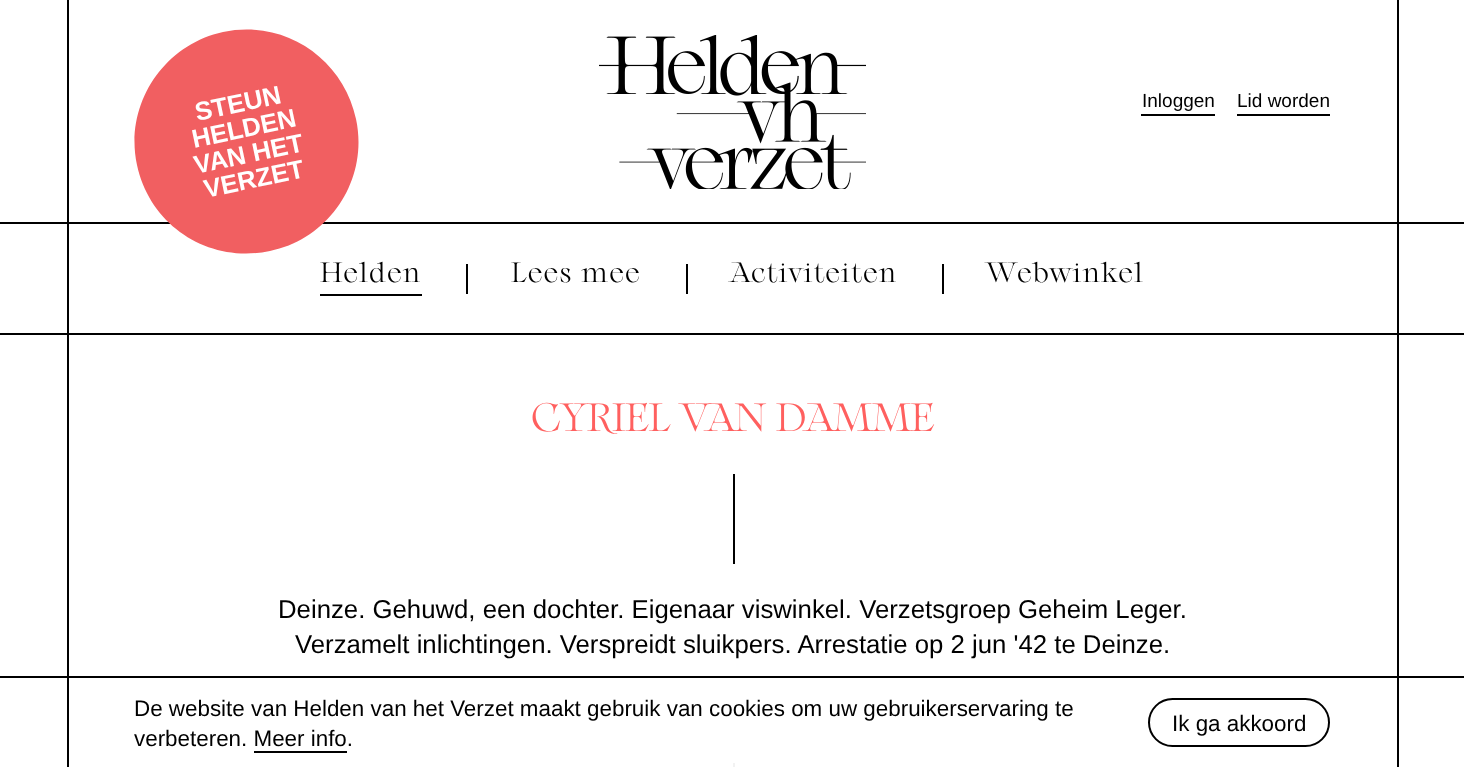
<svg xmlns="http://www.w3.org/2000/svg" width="1464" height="767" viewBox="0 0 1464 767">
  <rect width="100%" height="100%" fill="#fff"/>
  <path d="M0 222h1464v2H0z" fill="#000"/>
  <path d="M0 333h1464v2H0z" fill="#000"/>
  <path d="M733 474h2v293H733z" fill="#000"/>
  <path d="M733 564h2v199H733z" fill="#fff"/>
  <path d="M0 676h1464v2H0z" fill="#000"/>
  <path d="M67 0h2v767H67z" fill="#000"/>
  <path d="M223 32C284 19 343 58 356 119C369 179 330 239 270 251C209 264 150 226 137 165C124 105 163 45 223 32Z" fill="#f15f61"/>
  <image x="599" y="35" width="267" height="154" href="img/1.png"/>
  <path d="M1141 114h74v2H1141z" fill="#000"/>
  <path d="M1237 114h93v2H1237z" fill="#000"/>
  <path d="M320 294h102v2H320z" fill="#000"/>
  <path d="M466 264h2v30H466z" fill="#000"/>
  <path d="M686 264h2v30H686z" fill="#000"/>
  <path d="M942 264h2v30H942z" fill="#000"/>
  <path d="M1397 0h2v767H1397z" fill="#000"/>
  <path d="M733 763h2v4H733z" fill="#fffffff2"/>
  <path d="M254 751h93v2H254z" fill="#000"/>
  <rect x="1149" y="699" width="180" height="47" rx="23.5" fill="none" stroke="#000" stroke-width="2"/>
  <g font-family="Liberation Sans" font-size="25.75" font-weight="bold" fill="#fff">
    <text x="197" y="121" transform="rotate(-12 197 121)">STEUN</text>
    <text x="194" y="148" transform="rotate(-12 194 148)">HELDEN</text>
    <text x="196" y="174" transform="rotate(-12 196 174)">VAN HET</text>
    <text x="206" y="198" transform="rotate(-12 206 198)">VERZET</text>
  </g>
  <g font-family="Liberation Sans" font-size="19" fill="#000">
    <text x="1142" y="107">Inloggen</text>
    <text x="1237" y="107">Lid worden</text>
  </g>
  <g font-family="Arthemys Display" font-size="28" font-weight="300" letter-spacing="1.4" fill="#000">
    <text x="320" y="282">Helden</text>
    <text x="511" y="282">Lees mee</text>
    <text x="731" y="282">Activiteiten</text>
    <text x="986" y="282">Webwinkel</text>
  </g>
  <text x="531" y="431" font-family="Arthemys Display" font-size="39.25" font-weight="300" fill="#ff605f">CYRIEL VAN DAMME</text>
  <g font-family="Liberation Sans" font-size="25.75" fill="#000">
    <text x="278" y="618">Deinze. Gehuwd, een dochter. Eigenaar viswinkel. Verzetsgroep Geheim Leger.</text>
    <text x="295" y="653">Verzamelt inlichtingen. Verspreidt sluikpers. Arrestatie op 2 jun '42 te Deinze.</text>
  </g>
  <g font-family="Liberation Sans" font-size="22.4" fill="#000">
    <text x="134" y="716">De website van Helden van het Verzet maakt gebruik van cookies om uw gebruikerservaring te</text>
    <text x="134" y="746">verbeteren. Meer info.</text>
    <text x="1172" y="731">Ik ga akkoord</text>
  </g>
</svg>
